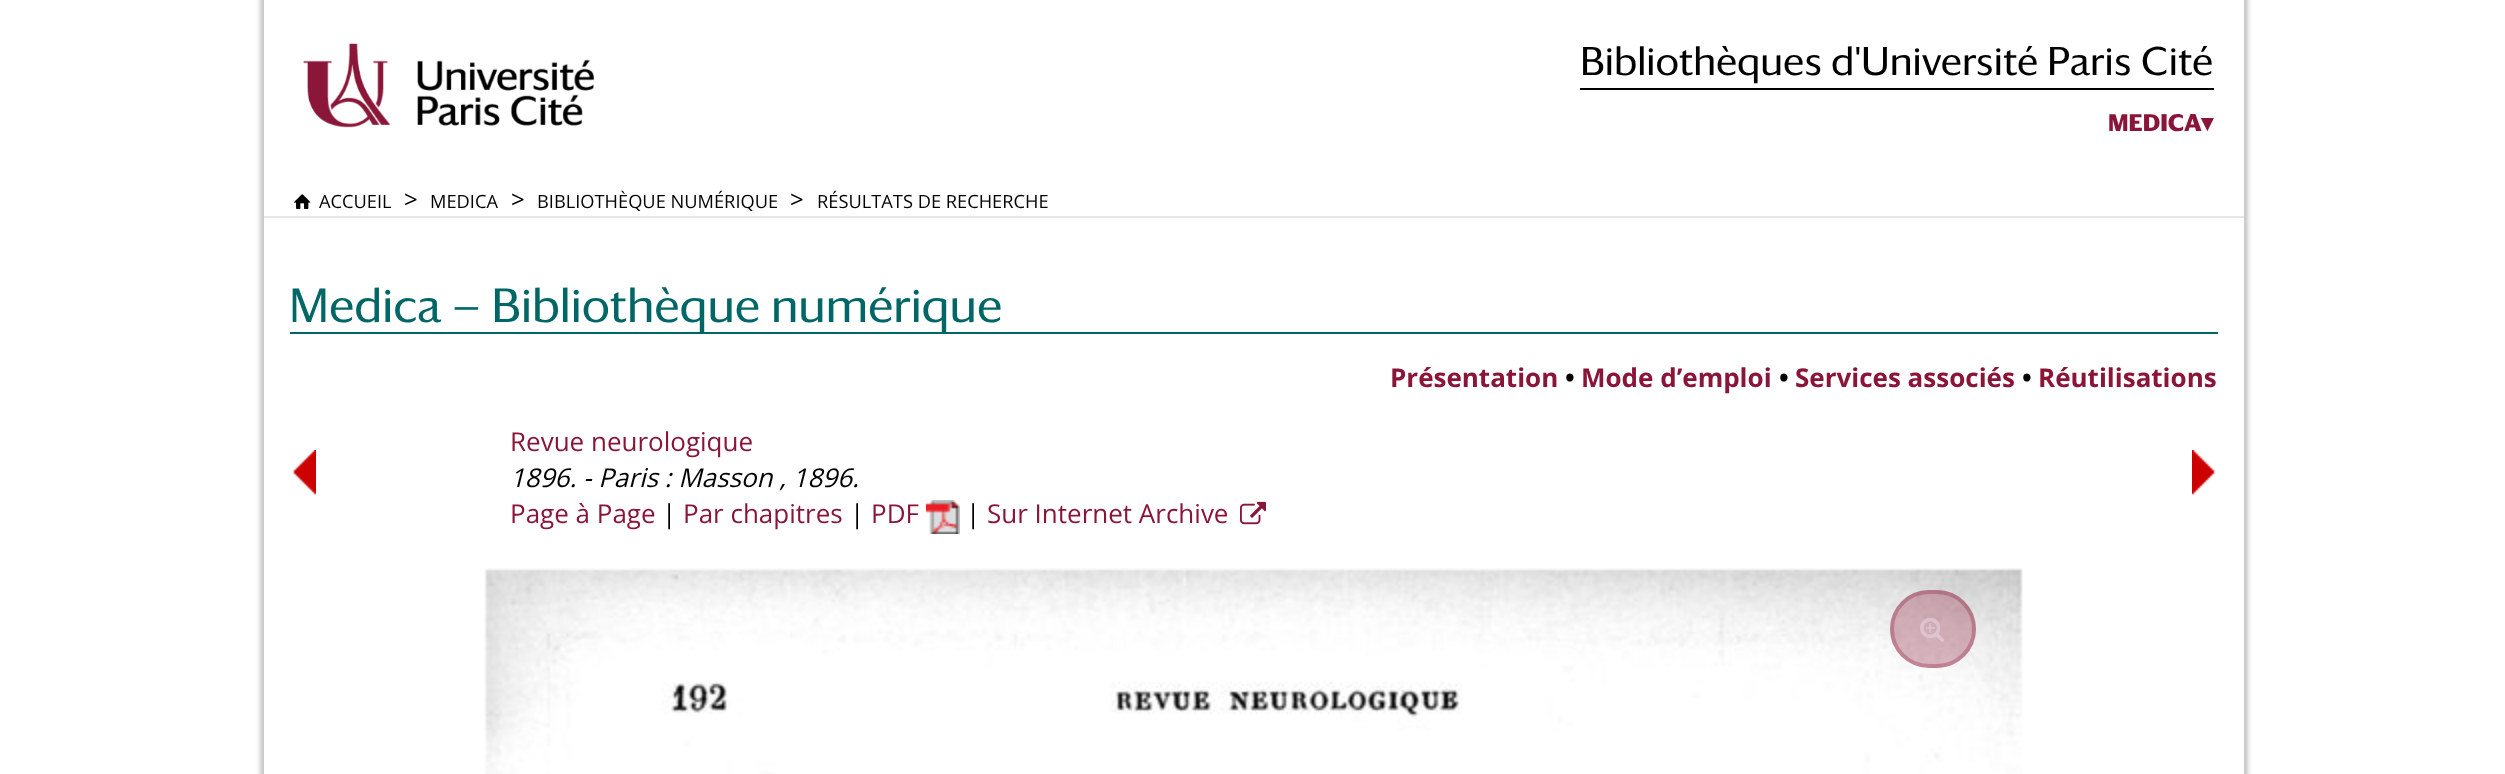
<svg xmlns="http://www.w3.org/2000/svg" width="2505" height="774" viewBox="0 0 2505 774">
  <defs>
    <clipPath id="clip1"><path d="M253 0H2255V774H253ZM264 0H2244V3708H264Z" clip-rule="evenodd"/></clipPath>
  </defs>
  <rect width="100%" height="100%" fill="#fff"/>
  <g clip-path="url(#clip1)">
    <path d="M260 -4h1988v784H260z" fill="#4444444d" filter="blur(2px)"/>
  </g>
  <path d="M264 216h1980v2H264z" fill="#e6e6e6"/>
  <image x="302" y="43" width="292" height="85" href="img/1.png"/>
  <path d="M1580 88h634v2H1580z" fill="#000"/>
  <image x="294" y="194" width="17" height="15" href="img/2.png"/>
  <path d="M290 332h1928v2H290z" fill="#066"/>
  <image x="293" y="450" width="23" height="45" href="img/3.png"/>
  <image x="926" y="500" width="34" height="34" href="img/4.png"/>
  <image x="1240" y="501" width="26" height="24" href="img/5.png"/>
  <image x="2192" y="450" width="23" height="45" href="img/6.png"/>
  <image x="484" y="568" width="1539" height="206" href="img/7.png"/>
  <rect x="1890" y="590" width="86" height="78" rx="39" fill="#8a15384d"/>
  <rect x="1892" y="592" width="82" height="74" rx="37" fill="none" stroke="#8a15384d" stroke-width="4"/>
  <image x="1920" y="617" width="24" height="25" href="img/8.png"/>
  <text x="1580" y="75" font-family="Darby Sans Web" font-size="39" fill="#000">Bibliothèques d'Université Paris Cité</text>
  <text x="2108" y="131" font-family="Darby Sans Web" font-size="23.5" font-weight="bold" fill="#8a1538">MEDICA</text>
  <text x="2201" y="131" font-family="DejaVu Sans" font-size="24" font-weight="bold" fill="#8a1538">▾</text>
  <text x="319" y="208" font-family="Open Sans" font-size="18.25" fill="#000">ACCUEIL</text>
  <text x="404" y="208" font-family="Open Sans" font-size="24" fill="#000">&gt;</text>
  <text x="430" y="208" font-family="Open Sans" font-size="18.25" fill="#000">MEDICA</text>
  <text x="511" y="208" font-family="Open Sans" font-size="24" fill="#000">&gt;</text>
  <text x="537" y="208" font-family="Open Sans" font-size="18.25" fill="#000">BIBLIOTHÈQUE NUMÉRIQUE</text>
  <text x="790" y="208" font-family="Open Sans" font-size="24" fill="#000">&gt;</text>
  <text x="817" y="208" font-family="Open Sans" font-size="18.25" fill="#000">RÉSULTATS DE RECHERCHE</text>
  <text x="289" y="322" font-family="Darby Sans Web" font-size="46.75" fill="#066">Medica — Bibliothèque numérique</text>
  <text x="1390" y="387" font-family="Open Sans" font-size="26" font-weight="bold" fill="#8a1538">Présentation</text>
  <text x="1565" y="387" font-family="Open Sans" font-size="26" font-weight="bold" fill="#000">•</text>
  <text x="1581" y="387" font-family="Open Sans" font-size="26" font-weight="bold" fill="#8a1538">Mode d’emploi</text>
  <text x="1779" y="387" font-family="Open Sans" font-size="26" font-weight="bold" fill="#000">•</text>
  <text x="1795" y="387" font-family="Open Sans" font-size="26" font-weight="bold" fill="#8a1538">Services associés</text>
  <text x="2022" y="387" font-family="Open Sans" font-size="26" font-weight="bold" fill="#000">•</text>
  <text x="2038" y="387" font-family="Open Sans" font-size="26" font-weight="bold" fill="#8a1538">Réutilisations</text>
  <text x="510" y="451" font-family="Open Sans" font-size="26" fill="#8a1538">Revue neurologique</text>
  <text x="510" y="487" font-family="Open Sans" font-size="26" font-style="italic" fill="#000">1896. - Paris : Masson , 1896.</text>
  <text x="510" y="523" font-family="Open Sans" font-size="26" fill="#8a1538">Page à Page</text>
  <text x="662" y="523" font-family="Open Sans" font-size="26" fill="#000">|</text>
  <text x="683" y="523" font-family="Open Sans" font-size="26" fill="#8a1538">Par chapitres</text>
  <text x="850" y="523" font-family="Open Sans" font-size="26" fill="#000">|</text>
  <text x="871" y="523" font-family="Open Sans" font-size="26" fill="#8a1538">PDF</text>
  <text x="966" y="523" font-family="Open Sans" font-size="26" fill="#000">|</text>
  <text x="987" y="523" font-family="Open Sans" font-size="26" fill="#8a1538">Sur Internet Archive</text>
</svg>
